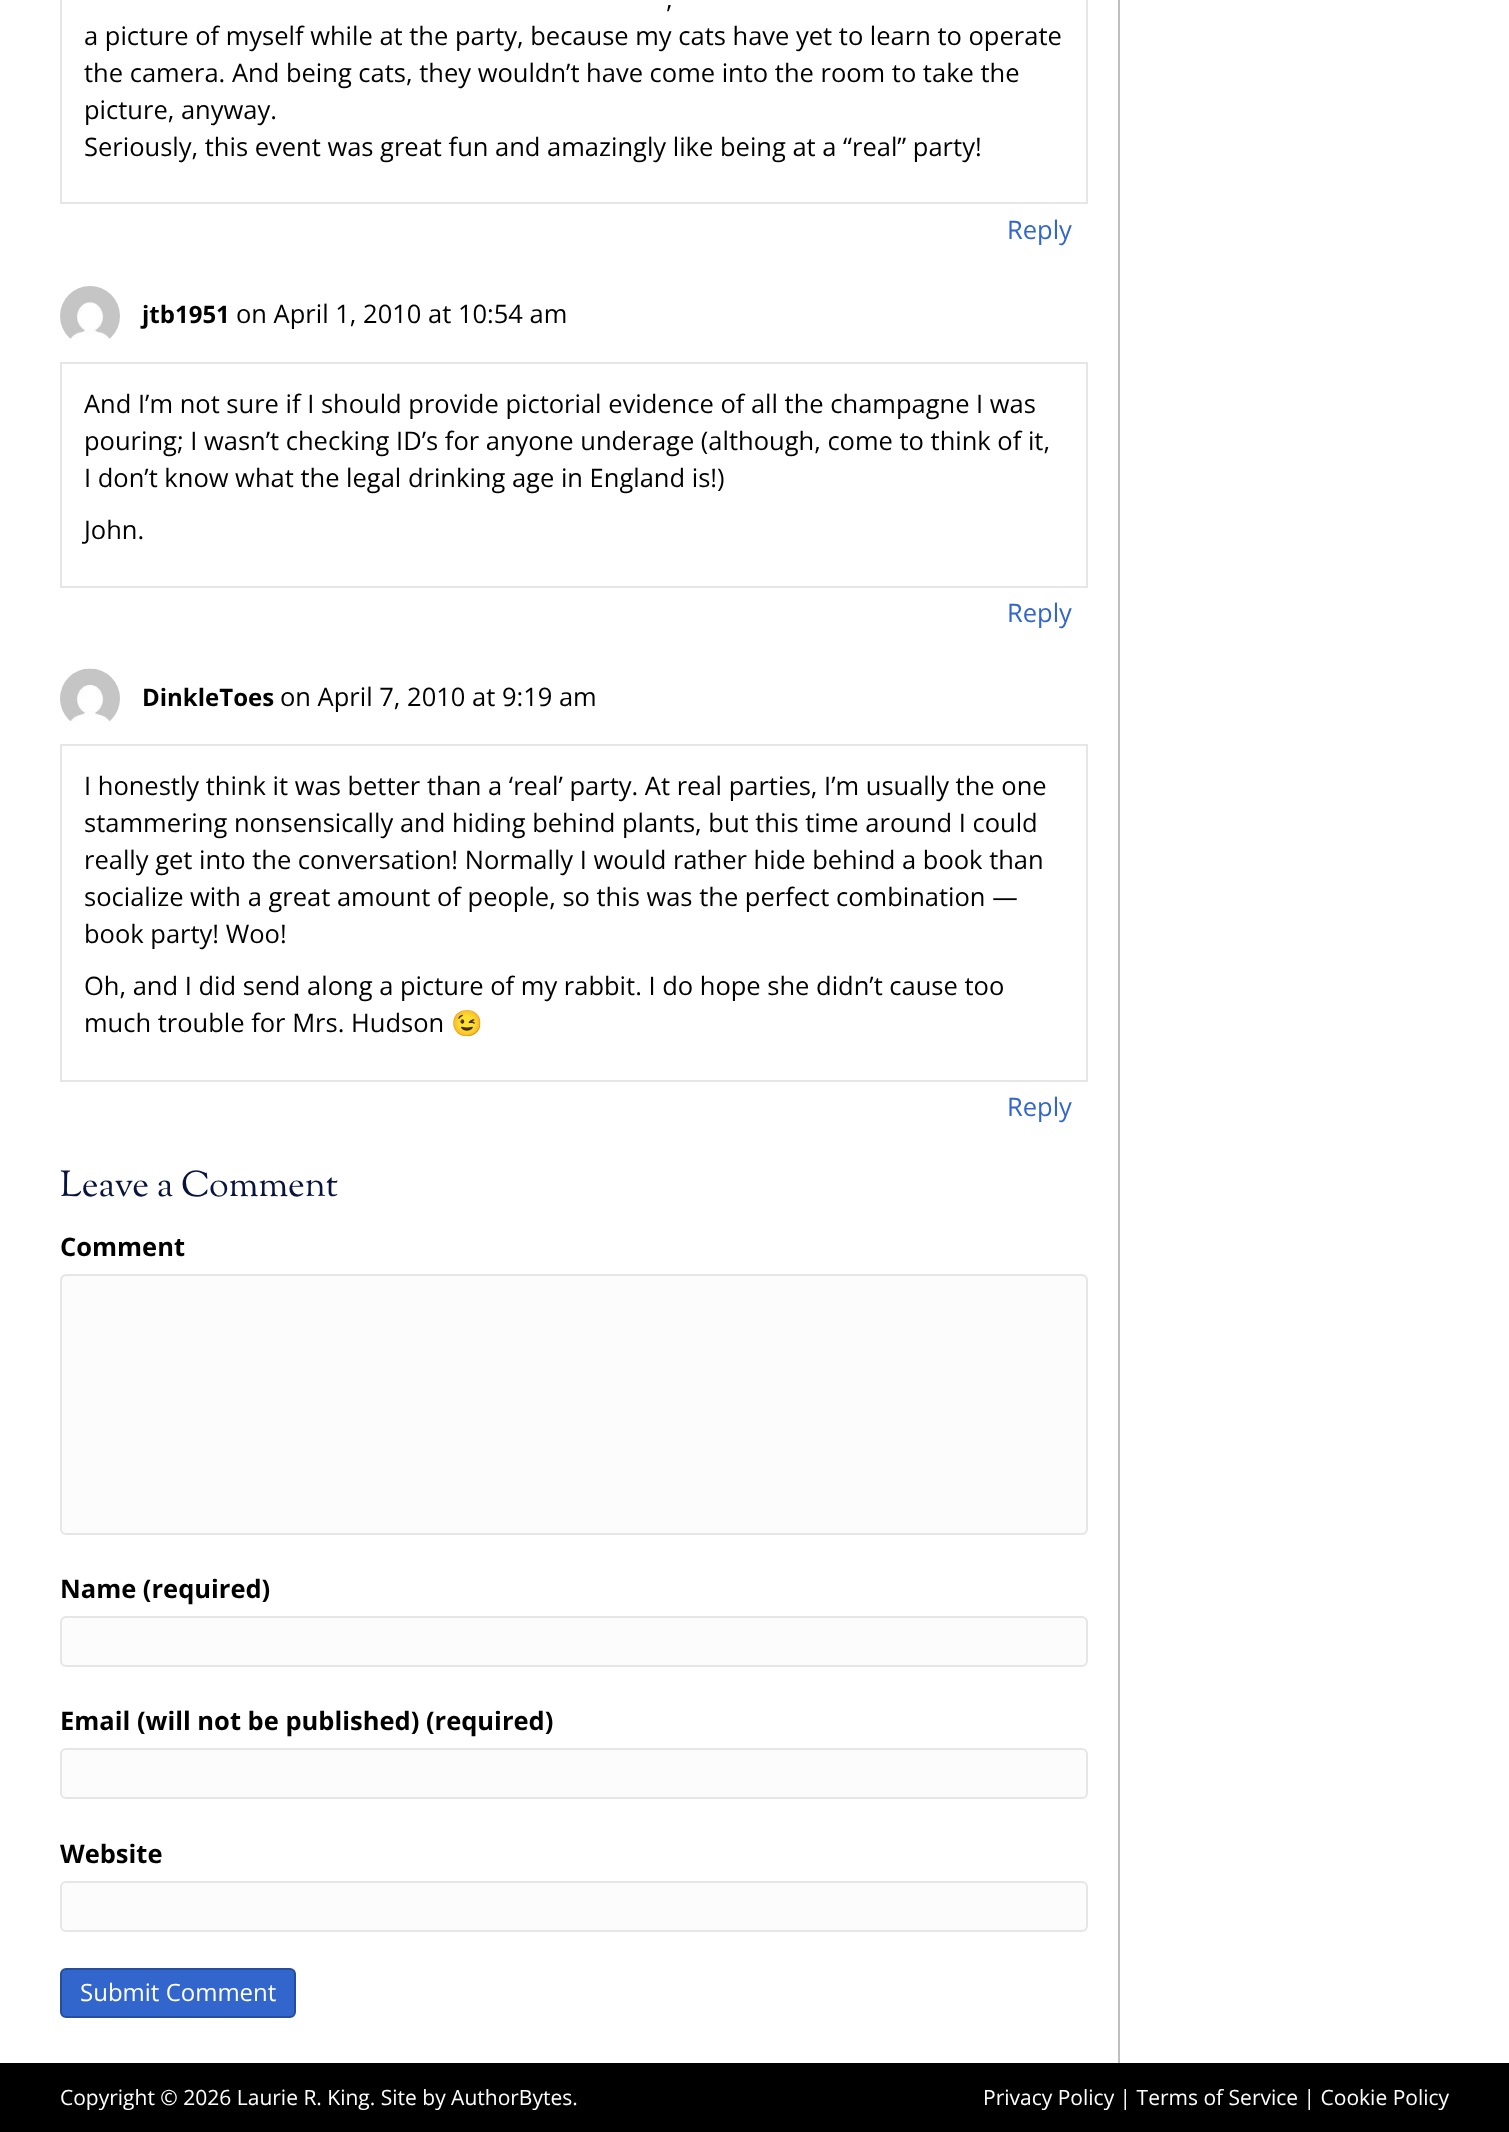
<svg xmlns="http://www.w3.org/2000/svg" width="1509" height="2132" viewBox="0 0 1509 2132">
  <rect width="100%" height="100%" fill="#fff"/>
  <path d="M61 -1h1026v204H61z" fill="none" stroke="#e6e6e6" stroke-width="2"/>
  <image x="60" y="286" width="60" height="53" href="img/1.png"/>
  <path d="M61 363h1026v224H61z" fill="none" stroke="#e6e6e6" stroke-width="2"/>
  <image x="60" y="668" width="60" height="54" href="img/2.png"/>
  <path d="M61 745h1026v336H61z" fill="none" stroke="#e6e6e6" stroke-width="2"/>
  <rect x="60" y="1274" width="1028" height="261" rx="6" fill="#fcfcfc"/>
  <path d="M66 1276H1082C1084 1276 1086 1279 1086 1281C1086 1278 1084 1275 1081 1275H67C64 1275 62 1278 62 1281C62 1279 64 1276 66 1276Z" fill="#e9e9e9"/>
  <rect x="61" y="1275" width="1026" height="259" rx="5" fill="none" stroke="#e6e6e6" stroke-width="2"/>
  <rect x="61" y="1617" width="1026" height="49" rx="5" fill="#fcfcfc" stroke="#e6e6e6" stroke-width="2"/>
  <rect x="61" y="1749" width="1026" height="49" rx="5" fill="#fcfcfc" stroke="#e6e6e6" stroke-width="2"/>
  <rect x="61" y="1882" width="1026" height="49" rx="5" fill="#fcfcfc" stroke="#e6e6e6" stroke-width="2"/>
  <rect x="61" y="1969" width="234" height="48" rx="5" fill="#36c" stroke="#274e9b" stroke-width="2"/>
  <path d="M1118 0h2v2063H1118z" fill="#bfbfbf"/>
  <path d="M0 2063h1509v69H0z" fill="#000"/>
  <g font-family="Open Sans" font-size="25.5" fill="#000">
    <text x="666" y="8">,</text>
    <text x="84" y="45">a picture of myself while at the party, because my cats have yet to learn to operate</text>
    <text x="84" y="82">the camera. And being cats, they wouldn’t have come into the room to take the</text>
    <text x="84" y="119">picture, anyway.</text>
    <text x="84" y="156">Seriously, this event was great fun and amazingly like being at a “real” party!</text>
  </g>
  <text x="1007" y="239" font-family="Open Sans" font-size="25.5" fill="#36c">Reply</text>
  <text x="142" y="323" font-family="Open Sans" font-size="24" font-weight="bold" fill="#000">jtb1951</text>
  <g font-family="Open Sans" font-size="25.5" fill="#000">
    <text x="236" y="323">on April 1, 2010 at 10:54 am</text>
    <text x="84" y="413">And I’m not sure if I should provide pictorial evidence of all the champagne I was</text>
    <text x="84" y="450">pouring; I wasn’t checking ID’s for anyone underage (although, come to think of it,</text>
    <text x="84" y="487">I don’t know what the legal drinking age in England is!)</text>
    <text x="84" y="539">John.</text>
  </g>
  <text x="1007" y="622" font-family="Open Sans" font-size="25.5" fill="#36c">Reply</text>
  <text x="142" y="706" font-family="Open Sans" font-size="24" font-weight="bold" fill="#000">DinkleToes</text>
  <g font-family="Open Sans" font-size="25.5" fill="#000">
    <text x="280" y="706">on April 7, 2010 at 9:19 am</text>
    <text x="84" y="795">I honestly think it was better than a ‘real’ party. At real parties, I’m usually the one</text>
    <text x="84" y="832">stammering nonsensically and hiding behind plants, but this time around I could</text>
    <text x="84" y="869">really get into the conversation! Normally I would rather hide behind a book than</text>
    <text x="84" y="906">socialize with a great amount of people, so this was the perfect combination —</text>
    <text x="84" y="943">book party! Woo!</text>
    <text x="84" y="995">Oh, and I did send along a picture of my rabbit. I do hope she didn’t cause too</text>
    <text x="84" y="1032">much trouble for Mrs. Hudson</text>
  </g>
  <text x="451" y="1032" font-family="Noto Color Emoji" font-size="25.5" fill="#000">😉</text>
  <text x="1007" y="1116" font-family="Open Sans" font-size="25.5" fill="#36c">Reply</text>
  <text x="60" y="1196" font-family="Sorts Mill Goudy" font-size="36" fill="#08143d">Leave a Comment</text>
  <g font-family="Open Sans" font-size="25.5" font-weight="bold" fill="#000">
    <text x="60" y="1256">Comment</text>
    <text x="60" y="1598">Name (required)</text>
    <text x="60" y="1730">Email (will not be published) (required)</text>
    <text x="60" y="1863">Website</text>
  </g>
  <text x="80" y="2001" font-family="Open Sans" font-size="24" fill="#fff">Submit Comment</text>
  <g font-family="Open Sans" font-size="21" fill="#fff">
    <text x="60" y="2105">Copyright © 2026 Laurie R. King. Site by AuthorBytes.</text>
    <text x="983" y="2105">Privacy Policy | Terms of Service | Cookie Policy</text>
  </g>
</svg>
